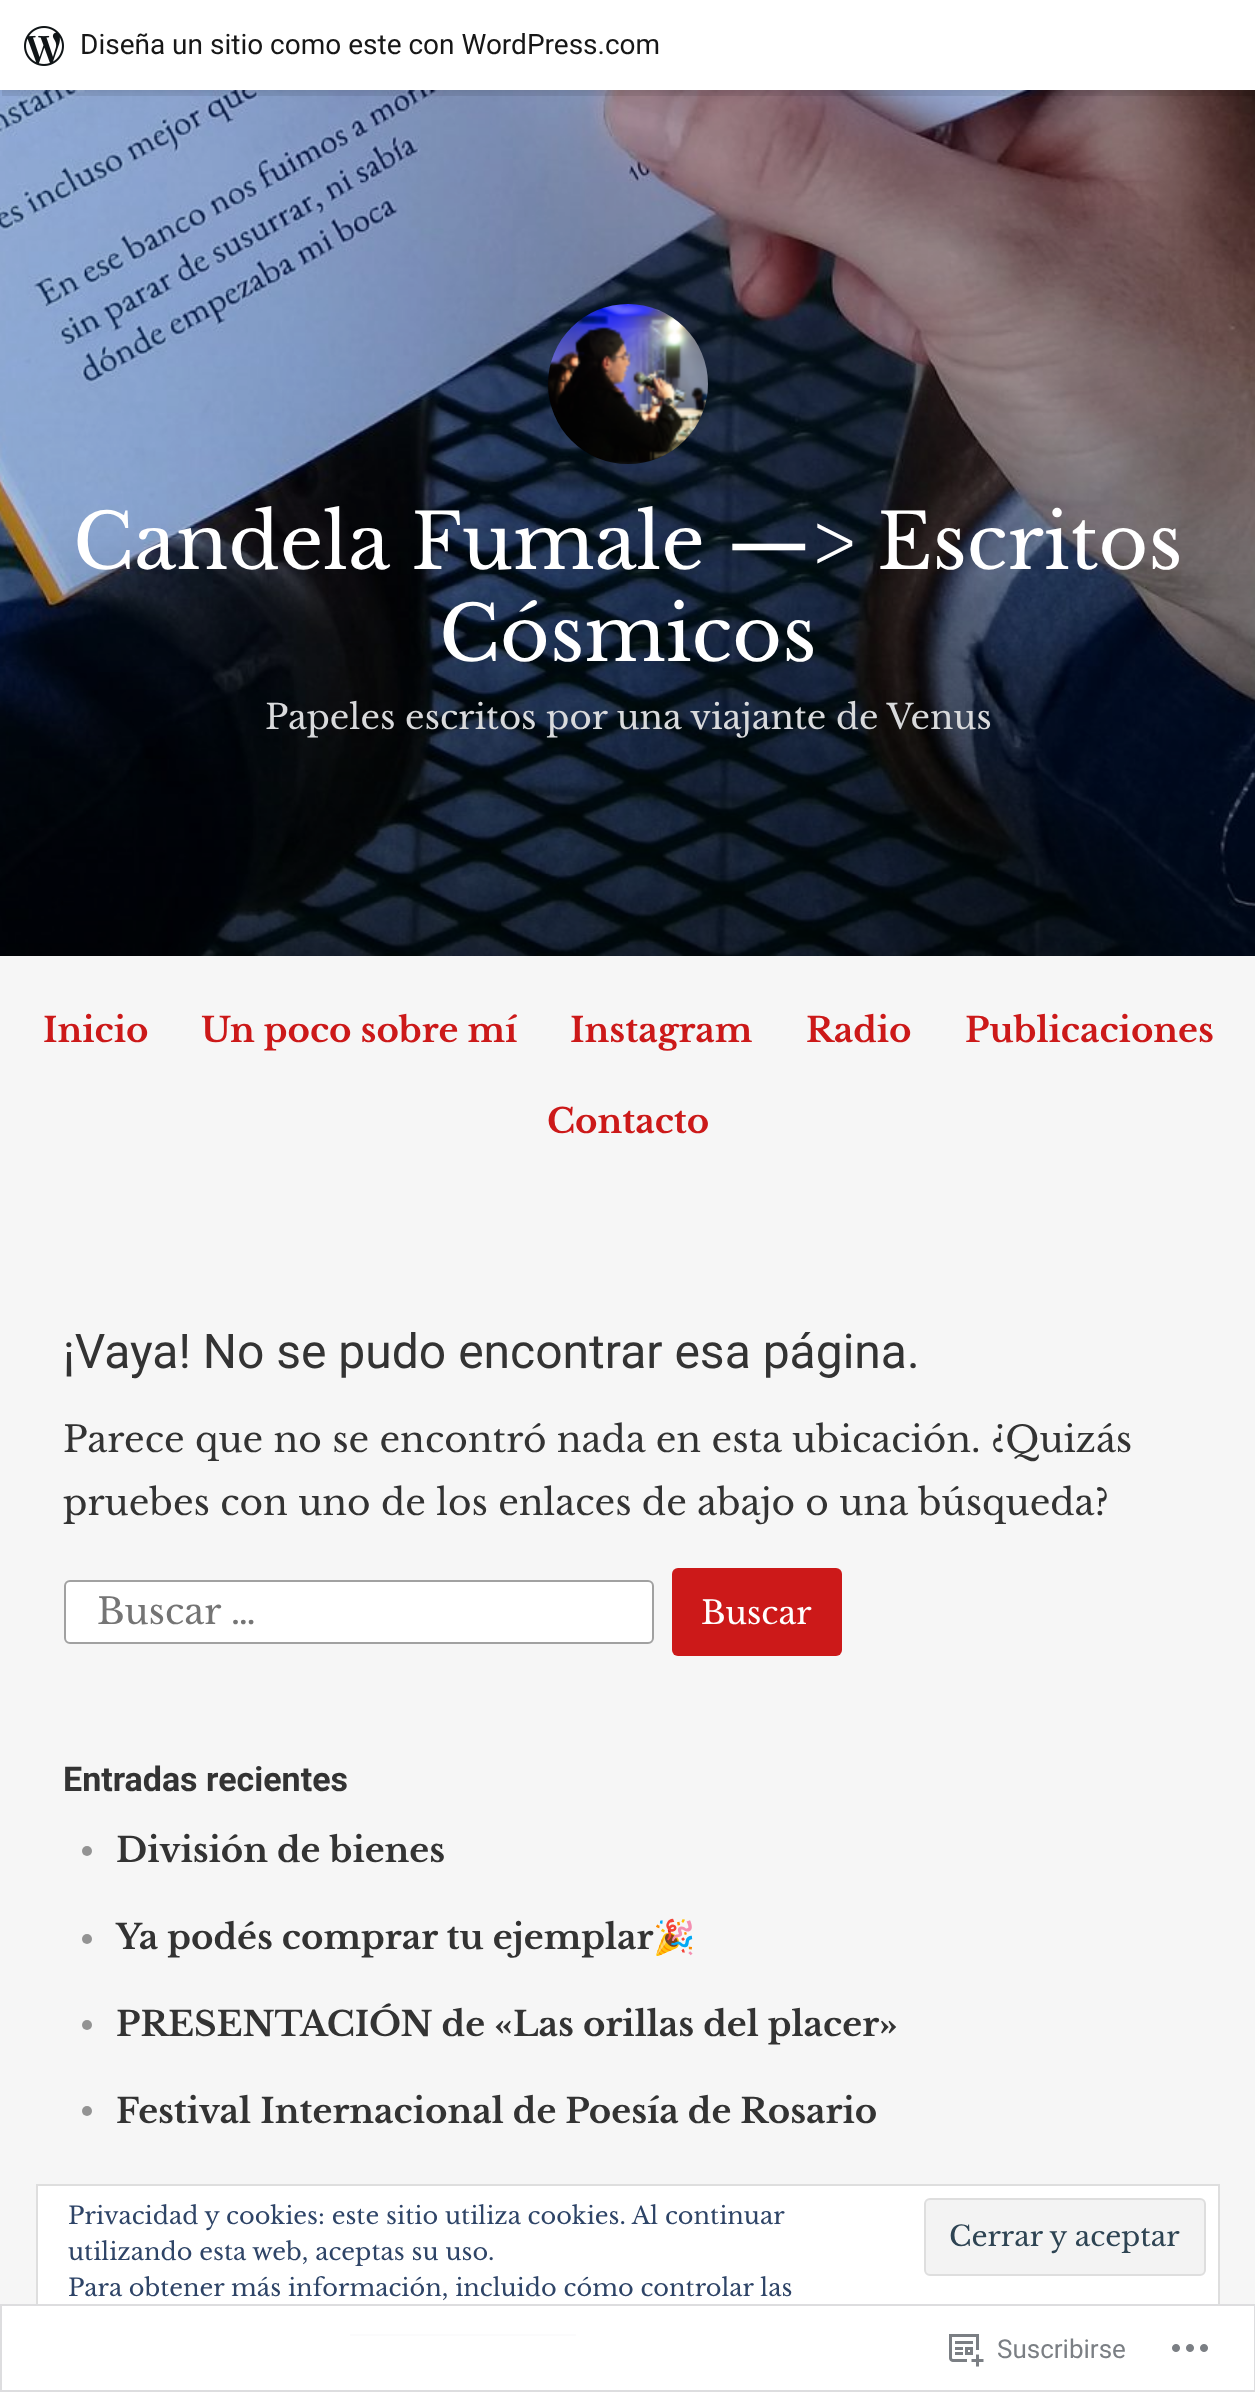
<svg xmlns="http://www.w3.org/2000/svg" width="1255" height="2392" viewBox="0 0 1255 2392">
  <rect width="100%" height="100%" fill="#f6f6f6"/>
  <image x="0" y="90" width="1255" height="866" href="img/2.png"/>
  <path d="M0 2h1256v90H0z" fill="#0000000d" filter="blur(2px)"/>
  <path d="M2 90V96H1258V6H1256V90Z" fill="#00000014"/>
  <path d="M0 0h1255v90H0z" fill="#fff"/>
  <image x="24" y="26" width="40" height="40" href="img/1.png"/>
  <image x="548" y="304" width="160" height="160" href="img/3.png"/>
  <rect x="65" y="1581" width="588" height="62" rx="5" fill="#fff" stroke="#a1a1a1" stroke-width="2"/>
  <rect x="672" y="1568" width="170" height="88" rx="6" fill="#cc1919"/>
  <circle cx="87" cy="1851" r="5" fill="#939393"/>
  <circle cx="87" cy="1939" r="5" fill="#939393"/>
  <circle cx="87" cy="2025" r="5" fill="#939393"/>
  <circle cx="87" cy="2111" r="5" fill="#939393"/>
  <path d="M37 2185h1182v170H37z" fill="#fff" stroke="#dedede" stroke-width="2"/>
  <rect x="925" y="2199" width="280" height="76" rx="5" fill="#f3f3f3" stroke="#dedede" stroke-width="2"/>
  <path d="M350 2334h226v2H350z" fill="#2e4467"/>
  <path d="M1 2305h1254v86H1z" fill="#fffffffa" stroke="#dddddf" stroke-width="2"/>
  <image x="949" y="2334" width="35" height="33" href="img/4.png"/>
  <image x="1172" y="2344" width="36" height="8" href="img/5.png"/>
  <text x="80" y="54" font-family="Roboto" font-size="28" fill="#171717">Diseña un sitio como este con WordPress.com</text>
  <g font-family="Libre Baskerville" font-size="76" fill="#fff">
    <text x="73" y="569">Candela Fumale —&gt; Escritos</text>
    <text x="439" y="661">Cósmicos</text>
  </g>
  <text x="265" y="729" font-family="Libre Baskerville" font-size="34" fill="#d9dadc">Papeles escritos por una viajante de Venus</text>
  <g font-family="Libre Baskerville" font-size="34" font-weight="bold" fill="#cc1919">
    <text x="43" y="1042">Inicio</text>
    <text x="201" y="1042">Un poco sobre mí</text>
    <text x="570" y="1042">Instagram</text>
    <text x="806" y="1042">Radio</text>
    <text x="965" y="1042">Publicaciones</text>
    <text x="547" y="1133">Contacto</text>
  </g>
  <text x="63" y="1368" font-family="Roboto" font-size="48" fill="#333">¡Vaya! No se pudo encontrar esa página.</text>
  <g font-family="Libre Baskerville" font-size="36" fill="#333">
    <text x="63" y="1452">Parece que no se encontró nada en esta ubicación. ¿Quizás</text>
    <text x="63" y="1515">pruebes con uno de los enlaces de abajo o una búsqueda?</text>
  </g>
  <text x="97" y="1624" font-family="Libre Baskerville" font-size="36" fill="#757575">Buscar …</text>
  <text x="701" y="1624" font-family="Libre Baskerville" font-size="32" fill="#fff">Buscar</text>
  <text x="63" y="1791" font-family="Roboto" font-size="34" font-weight="bold" fill="#333">Entradas recientes</text>
  <g font-family="Libre Baskerville" font-size="34" font-weight="bold" fill="#333">
    <text x="116" y="1862">División de bienes</text>
    <text x="116" y="1949">Ya podés comprar tu ejemplar</text>
  </g>
  <text x="653" y="1949" font-family="Noto Color Emoji" font-size="34" font-weight="bold" fill="#333">🎉</text>
  <g font-family="Libre Baskerville" font-size="34" font-weight="bold" fill="#333">
    <text x="116" y="2036">PRESENTACIÓN de «Las orillas del placer»</text>
    <text x="116" y="2123">Festival Internacional de Poesía de Rosario</text>
  </g>
  <g font-family="Libre Baskerville" font-size="24" fill="#2e4467">
    <text x="68" y="2224">Privacidad y cookies: este sitio utiliza cookies. Al continuar</text>
    <text x="68" y="2260">utilizando esta web, aceptas su uso.</text>
  </g>
  <text x="949" y="2246" font-family="Libre Baskerville" font-size="28" fill="#2e4453">Cerrar y aceptar</text>
  <text x="68" y="2296" font-family="Libre Baskerville" font-size="24" fill="#2e4467">Para obtener más información, incluido cómo controlar las</text>
  <text x="997" y="2358" font-family="Roboto" font-size="26" fill="#7b7f84">Suscribirse</text>
</svg>
